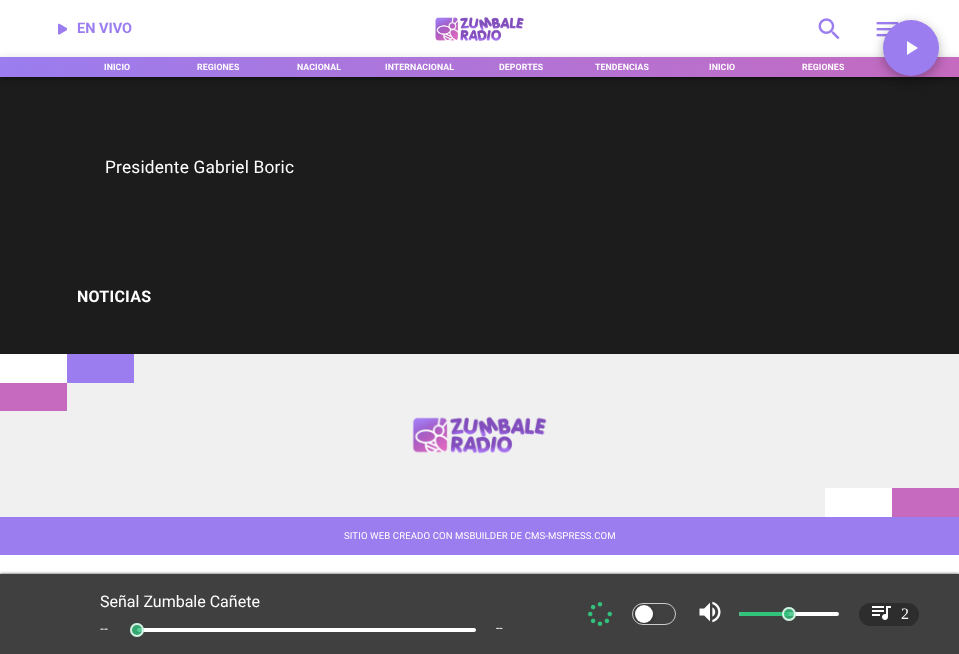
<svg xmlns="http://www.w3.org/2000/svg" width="959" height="654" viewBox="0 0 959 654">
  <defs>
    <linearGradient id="g1" gradientUnits="userSpaceOnUse" x1="82" y1="252" x2="877" y2="-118"><stop offset="0.01" stop-color="#9b7def"/><stop offset="1" stop-color="#c56abf"/></linearGradient>
    <clipPath id="clip1"><rect x="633" y="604" width="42" height="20" rx="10"/></clipPath>
  </defs>
  <rect width="100%" height="100%" fill="#fff"/>
  <image x="58" y="23" width="9" height="12" href="img/1.png"/>
  <image x="435" y="17" width="89" height="24" href="img/2.png"/>
  <image x="818" y="18" width="22" height="22" href="img/3.png"/>
  <image x="876" y="21" width="23" height="16" href="img/4.png"/>
  <path d="M0 77h959v277H0z" fill="#1c1c1c"/>
  <path d="M0 58h959v20H0z" fill="#0000001f" filter="blur(4px)"/>
  <path d="M0 60h959v20H0z" fill="#00000024" filter="blur(2px)"/>
  <path d="M2 62h955v16H2z" fill="#00000033" filter="blur(1.5px)"/>
  <path d="M0 57h959v20H0z" fill="url(#g1)"/>
  <path d="M0 354h959v163H0z" fill="#f0f0f0"/>
  <path d="M0 354h67v29H0z" fill="#fff"/>
  <path d="M67 354h67v29H67z" fill="#9b7def"/>
  <path d="M0 383h67v28H0z" fill="#c56abf"/>
  <image x="412" y="416" width="135" height="38" href="img/5.png"/>
  <path d="M825 488h67v29H825z" fill="#fff"/>
  <path d="M892 488h67v29H892z" fill="#c56abf"/>
  <path d="M0 517h959v38H0z" fill="#9b7def"/>
  <rect x="883" y="24" width="56" height="56" rx="28" fill="#0000004d" filter="blur(6px)"/>
  <circle cx="911" cy="48" r="28" fill="#9b7def"/>
  <path d="M907 41V55L918 48Z" fill="#fff"/>
  <path d="M0 574h959v80H0z" fill="#403f3f" filter="blur(1.5px)"/>
  <path d="M0 574h959v80H0z" fill="#404040"/>
  <rect x="137" y="628" width="339" height="4" rx="2" fill="#fff"/>
  <circle cx="137" cy="630" r="7" fill="#31c27ccc"/>
  <circle cx="137" cy="630" r="6" fill="none" stroke="#ffffffcc" stroke-width="2"/>
  <image x="588" y="602" width="24" height="24" href="img/6.png"/>
  <rect x="632.5" y="603.5" width="43" height="21" rx="10.5" fill="none" stroke="#ccc"/>
  <g clip-path="url(#clip1)">
    <rect x="635" y="607" width="18" height="18" rx="9" fill="#00000042" filter="blur(2.5px)"/>
  </g>
  <circle cx="644" cy="614" r="9" fill="#fff"/>
  <image x="699" y="601" width="22" height="22" href="img/7.png"/>
  <rect x="739" y="612" width="100" height="4" rx="2" fill="#fff"/>
  <rect x="739" y="612" width="50" height="4" rx="2" fill="#31c27c"/>
  <circle cx="789" cy="614" r="7" fill="#31c27ccc"/>
  <circle cx="789" cy="614" r="6" fill="none" stroke="#ffffffcc" stroke-width="2"/>
  <rect x="859" y="603" width="60" height="23" rx="11.5" fill="#2d2d2d"/>
  <image x="872" y="606" width="19" height="14" href="img/8.png"/>
  <text x="77" y="33" font-family="Roboto" font-size="14.5" font-weight="bold" fill="#9b7def">EN VIVO</text>
  <g font-family="Roboto" font-size="8.75" font-weight="bold" letter-spacing="0.1" fill="#fff">
    <text x="104" y="70">INICIO</text>
    <text x="197" y="70">REGIONES</text>
    <text x="297" y="70">NACIONAL</text>
    <text x="385" y="70">INTERNACIONAL</text>
    <text x="499" y="70">DEPORTES</text>
    <text x="595" y="70">TENDENCIAS</text>
    <text x="709" y="70">INICIO</text>
    <text x="802" y="70">REGIONES</text>
  </g>
  <text x="105" y="173" font-family="Roboto" font-size="17.25" letter-spacing="0.2" fill="#fff">Presidente Gabriel Boric</text>
  <text x="77" y="302" font-family="Roboto" font-size="16" font-weight="bold" letter-spacing="0.25" fill="#fff">NOTICIAS</text>
  <text x="344" y="539" font-family="Roboto" font-size="9.6" letter-spacing="0.1" fill="#fff">SITIO WEB CREADO CON MSBUILDER DE CMS-MSPRESS.COM</text>
  <text x="100" y="607" font-family="Roboto" font-size="16" fill="#fff">Señal Zumbale Cañete</text>
  <text x="100" y="632" font-family="Liberation Serif" font-size="12" fill="#fff">--</text>
  <text x="496" y="632" font-family="Roboto" font-size="12" fill="#fff">--</text>
  <text x="901" y="619" font-family="Liberation Serif" font-size="16" fill="#fff">2</text>
</svg>
